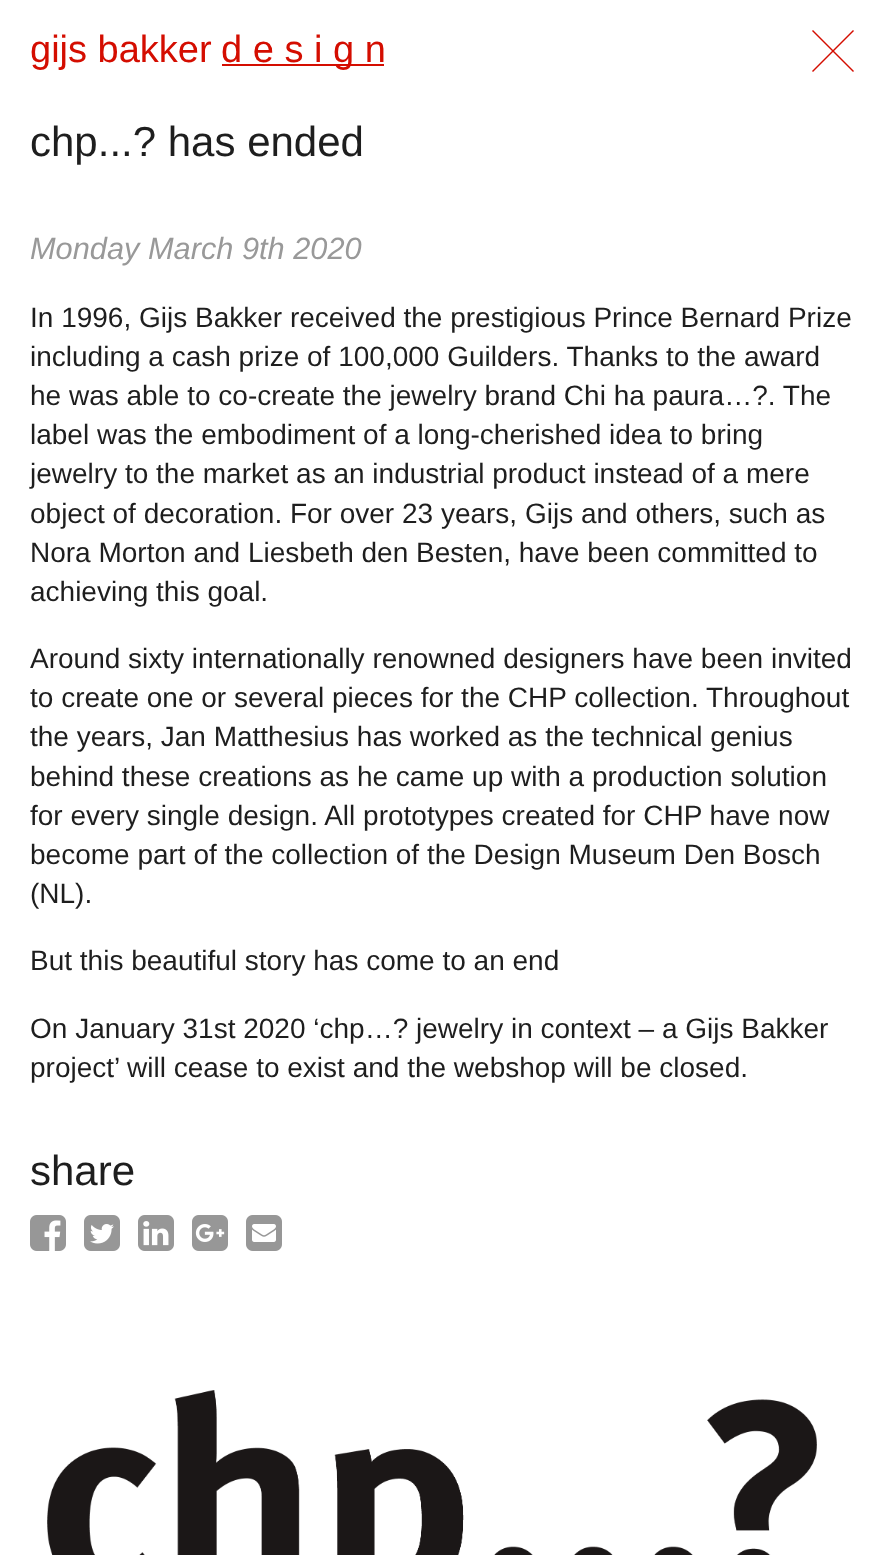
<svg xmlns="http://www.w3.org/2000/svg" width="883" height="1555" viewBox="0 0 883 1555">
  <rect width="100%" height="100%" fill="#fff"/>
  <path d="M222 64h162v2H222z" fill="#d40d00"/>
  <path d="M853 30L854 31L813 72L812 71Z" fill="#d40d00"/>
  <path d="M812 31L813 30L854 71L853 72Z" fill="#d40d00"/>
  <image x="30" y="1215" width="36" height="36" href="img/1.png"/>
  <image x="84" y="1215" width="36" height="36" href="img/2.png"/>
  <image x="138" y="1215" width="36" height="36" href="img/3.png"/>
  <image x="192" y="1215" width="36" height="36" href="img/4.png"/>
  <image x="246" y="1215" width="36" height="36" href="img/5.png"/>
  <image x="47" y="1390" width="770" height="165" href="img/6.png"/>
  <g font-family="Liberation Sans" font-size="38" fill="#d40d00">
    <text x="30" y="62">gijs bakker</text>
    <text x="221" y="62">d e s i g n</text>
  </g>
  <text x="30" y="156" font-family="Liberation Sans" font-size="42" fill="#1e1e1e">chp...? has ended</text>
  <text x="30" y="259" font-family="Liberation Sans" font-size="30.75" font-style="italic" fill="#999">Monday March 9th 2020</text>
  <g font-family="Liberation Sans" font-size="28" fill="#1e1e1e">
    <text x="30" y="327">In 1996, Gijs Bakker received the prestigious Prince Bernard Prize</text>
    <text x="30" y="366">including a cash prize of 100,000 Guilders. Thanks to the award</text>
    <text x="30" y="405">he was able to co-create the jewelry brand Chi ha paura…?. The</text>
    <text x="30" y="444">label was the embodiment of a long-cherished idea to bring</text>
    <text x="30" y="483">jewelry to the market as an industrial product instead of a mere</text>
    <text x="30" y="523">object of decoration. For over 23 years, Gijs and others, such as</text>
    <text x="30" y="562">Nora Morton and Liesbeth den Besten, have been committed to</text>
    <text x="30" y="601">achieving this goal.</text>
    <text x="30" y="668">Around sixty internationally renowned designers have been invited</text>
    <text x="30" y="707">to create one or several pieces for the CHP collection. Throughout</text>
    <text x="30" y="746">the years, Jan Matthesius has worked as the technical genius</text>
    <text x="30" y="786">behind these creations as he came up with a production solution</text>
    <text x="30" y="825">for every single design. All prototypes created for CHP have now</text>
    <text x="30" y="864">become part of the collection of the Design Museum Den Bosch</text>
    <text x="30" y="903">(NL).</text>
    <text x="30" y="970">But this beautiful story has come to an end</text>
    <text x="30" y="1038">On January 31st 2020 ‘chp…? jewelry in context – a Gijs Bakker</text>
    <text x="30" y="1077">project’ will cease to exist and the webshop will be closed.</text>
  </g>
  <text x="30" y="1185" font-family="Liberation Sans" font-size="42" fill="#1e1e1e">share</text>
</svg>
